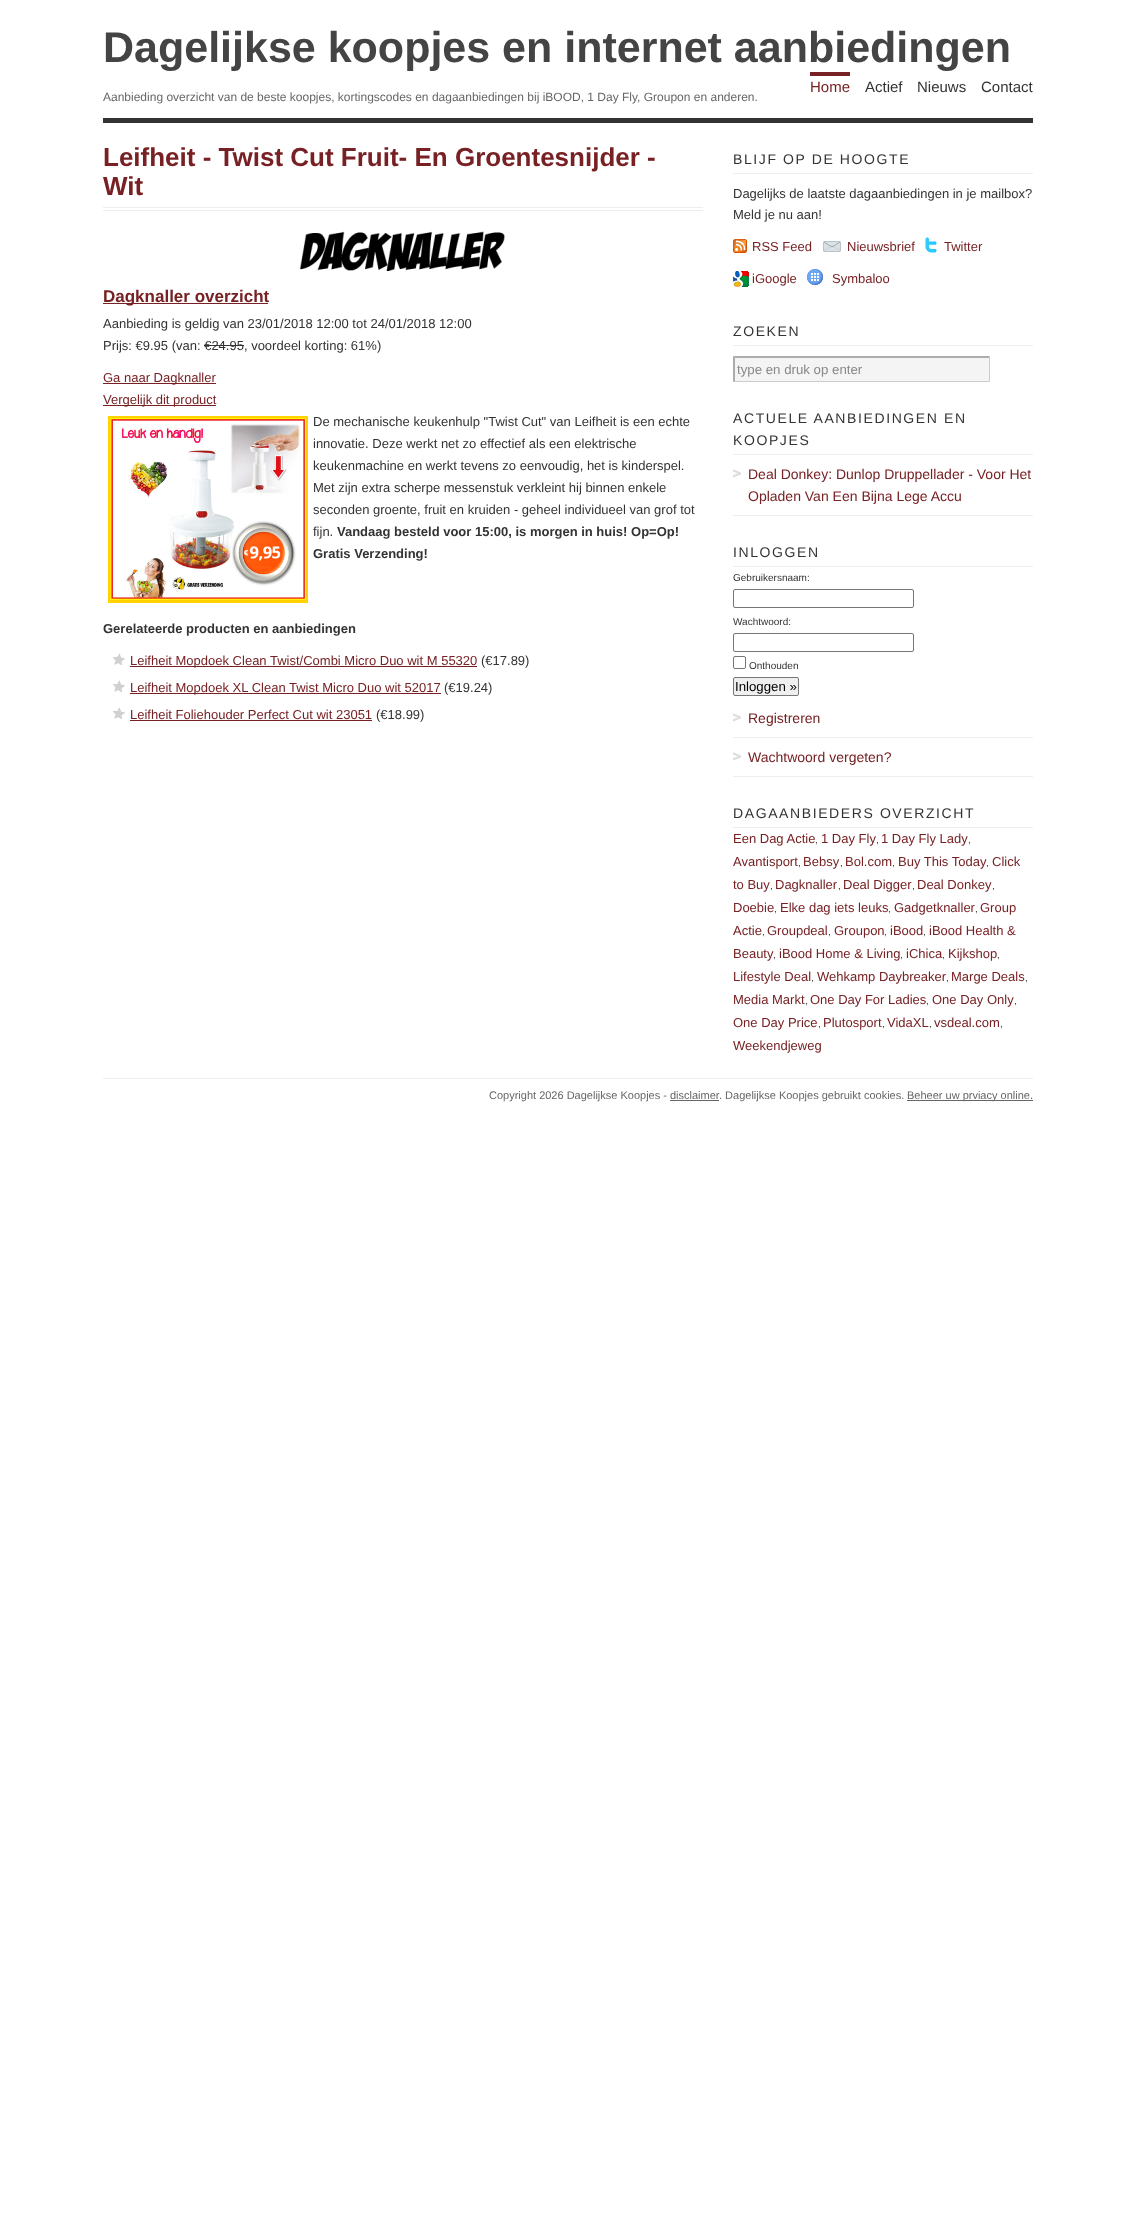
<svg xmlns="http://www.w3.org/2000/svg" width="1136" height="2233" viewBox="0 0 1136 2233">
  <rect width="100%" height="100%" fill="#fff"/>
  <path d="M103 118h930v5H103z" fill="#333"/>
  <path d="M810 72h40v4H810z" fill="#772124"/>
  <path d="M103 207h600v1H103z" fill="#eee"/>
  <path d="M103 210h600v1H103z" fill="#eee"/>
  <image x="300" y="231" width="205" height="40" href="img/1.png"/>
  <path d="M103 303h165v1H103z" fill="#772124"/>
  <path d="M204 345h40v1H204z" fill="#333"/>
  <path d="M103 383h113v1H103z" fill="#772124"/>
  <path d="M103 405h113v1H103z" fill="#772124"/>
  <image x="108" y="416" width="200" height="187" href="img/2.png"/>
  <image x="113" y="653" width="12" height="12" href="img/3.png"/>
  <path d="M130 666h347v1H130z" fill="#772124"/>
  <image x="113" y="680" width="12" height="12" href="img/3.png"/>
  <path d="M130 693h311v1H130z" fill="#772124"/>
  <image x="113" y="707" width="12" height="12" href="img/3.png"/>
  <path d="M130 720h242v1H130z" fill="#772124"/>
  <path d="M733 173h300v1H733z" fill="#eee"/>
  <image x="733" y="239" width="14" height="14" href="img/4.png"/>
  <image x="823" y="241" width="18" height="11" href="img/5.png"/>
  <image x="925" y="237" width="12" height="16" href="img/6.png"/>
  <image x="733" y="271" width="16" height="16" href="img/7.png"/>
  <image x="807" y="269" width="16" height="16" href="img/8.png"/>
  <path d="M733 345h300v1H733z" fill="#eee"/>
  <path d="M735 358h254v23H735z" fill="#f4f4f4"/>
  <path d="M733 356H990L989 358H735Z" fill="#acacac"/>
  <path d="M990 356V382L989 381V358Z" fill="#ccc"/>
  <path d="M990 382H733L735 381H989Z" fill="#ccc"/>
  <path d="M733 382V356L735 358V381Z" fill="#acacac"/>
  <path d="M733 454h300v1H733z" fill="#eee"/>
  <path d="M733 515h300v1H733z" fill="#eee"/>
  <image x="733" y="469" width="8" height="9" href="img/9.png"/>
  <path d="M733 566h300v1H733z" fill="#eee"/>
  <rect x="733.5" y="589.5" width="180" height="18" rx="1.5" fill="none" stroke="#767676"/>
  <rect x="733.5" y="633.5" width="180" height="18" rx="1.5" fill="none" stroke="#767676"/>
  <rect x="733.5" y="656.5" width="12" height="12" rx="1.5" fill="none" stroke="#767676"/>
  <rect x="733.5" y="677.5" width="65" height="18" rx="1.5" fill="#efefef" stroke="#767676"/>
  <path d="M733 737h300v1H733z" fill="#eee"/>
  <image x="733" y="713" width="8" height="9" href="img/9.png"/>
  <path d="M733 776h300v1H733z" fill="#eee"/>
  <image x="733" y="752" width="8" height="9" href="img/9.png"/>
  <path d="M733 827h300v1H733z" fill="#eee"/>
  <path d="M103 1078h930v1H103z" fill="#eee"/>
  <path d="M907 1100h126v1H907z" fill="#666"/>
  <path d="M670 1100h49v1H670z" fill="#666"/>
  <text x="103" y="62" font-family="Liberation Sans" font-size="43" font-weight="bold" fill="#444">Dagelijkse koopjes en internet aanbiedingen</text>
  <text x="810" y="92" font-family="Liberation Sans" font-size="15" fill="#772124">Home</text>
  <g font-family="Liberation Sans" font-size="15" fill="#333">
    <text x="865" y="92">Actief</text>
    <text x="917" y="92">Nieuws</text>
    <text x="981" y="92">Contact</text>
  </g>
  <text x="103" y="101" font-family="Liberation Sans" font-size="12" fill="#666">Aanbieding overzicht van de beste koopjes, kortingscodes en dagaanbiedingen bij iBOOD, 1 Day Fly, Groupon en anderen.</text>
  <g font-family="Liberation Sans" font-size="26" font-weight="bold" fill="#772124">
    <text x="103" y="166">Leifheit - Twist Cut Fruit- En Groentesnijder -</text>
    <text x="103" y="195">Wit</text>
  </g>
  <text x="103" y="302" font-family="Liberation Sans" font-size="17" font-weight="bold" fill="#772124">Dagknaller overzicht</text>
  <g font-family="Liberation Sans" font-size="13" fill="#333">
    <text x="103" y="328">Aanbieding is geldig van 23/01/2018 12:00 tot 24/01/2018 12:00</text>
    <text x="103" y="350">Prijs: €9.95 (van: €24.95, voordeel korting: 61%)</text>
  </g>
  <g font-family="Liberation Sans" font-size="13" fill="#772124">
    <text x="103" y="382">Ga naar Dagknaller</text>
    <text x="103" y="404">Vergelijk dit product</text>
  </g>
  <g font-family="Liberation Sans" font-size="13" fill="#333">
    <text x="313" y="426">De mechanische keukenhulp "Twist Cut" van Leifheit is een echte</text>
    <text x="313" y="448">innovatie. Deze werkt net zo effectief als een elektrische</text>
    <text x="313" y="470">keukenmachine en werkt tevens zo eenvoudig, het is kinderspel.</text>
    <text x="313" y="492">Met zijn extra scherpe messenstuk verkleint hij binnen enkele</text>
    <text x="313" y="514">seconden groente, fruit en kruiden - geheel individueel van grof tot</text>
    <text x="313" y="536">fijn.</text>
  </g>
  <g font-family="Liberation Sans" font-size="13" font-weight="bold" fill="#333">
    <text x="337" y="536">Vandaag besteld voor 15:00, is morgen in huis! Op=Op!</text>
    <text x="313" y="558">Gratis Verzending!</text>
    <text x="103" y="633">Gerelateerde producten en aanbiedingen</text>
  </g>
  <text x="130" y="665" font-family="Liberation Sans" font-size="13" fill="#772124">Leifheit Mopdoek Clean Twist/Combi Micro Duo wit M 55320</text>
  <text x="481" y="665" font-family="Liberation Sans" font-size="13" fill="#333">(€17.89)</text>
  <text x="130" y="692" font-family="Liberation Sans" font-size="13" fill="#772124">Leifheit Mopdoek XL Clean Twist Micro Duo wit 52017</text>
  <text x="444" y="692" font-family="Liberation Sans" font-size="13" fill="#333">(€19.24)</text>
  <text x="130" y="719" font-family="Liberation Sans" font-size="13" fill="#772124">Leifheit Foliehouder Perfect Cut wit 23051</text>
  <text x="376" y="719" font-family="Liberation Sans" font-size="13" fill="#333">(€18.99)</text>
  <text x="733" y="164" font-family="Liberation Sans" font-size="14" letter-spacing="1.6" fill="#333">BLIJF OP DE HOOGTE</text>
  <g font-family="Liberation Sans" font-size="13" fill="#333">
    <text x="733" y="198">Dagelijks de laatste dagaanbiedingen in je mailbox?</text>
    <text x="733" y="219">Meld je nu aan!</text>
  </g>
  <g font-family="Liberation Sans" font-size="13" fill="#772124">
    <text x="752" y="251">RSS Feed</text>
    <text x="847" y="251">Nieuwsbrief</text>
    <text x="944" y="251">Twitter</text>
    <text x="752" y="283">iGoogle</text>
    <text x="832" y="283">Symbaloo</text>
  </g>
  <text x="733" y="336" font-family="Liberation Sans" font-size="14" letter-spacing="1.6" fill="#333">ZOEKEN</text>
  <text x="737" y="374" font-family="Liberation Sans" font-size="13.25" fill="#888">type en druk op enter</text>
  <g font-family="Liberation Sans" font-size="14" letter-spacing="1.6" fill="#333">
    <text x="733" y="423">ACTUELE AANBIEDINGEN EN</text>
    <text x="733" y="445">KOOPJES</text>
  </g>
  <g font-family="Liberation Sans" font-size="14" fill="#772124">
    <text x="748" y="479">Deal Donkey: Dunlop Druppellader - Voor Het</text>
    <text x="748" y="501">Opladen Van Een Bijna Lege Accu</text>
  </g>
  <text x="733" y="557" font-family="Liberation Sans" font-size="14" letter-spacing="1.6" fill="#333">INLOGGEN</text>
  <g font-family="Liberation Sans" font-size="10" fill="#333">
    <text x="733" y="581">Gebruikersnaam:</text>
    <text x="733" y="625">Wachtwoord:</text>
    <text x="749" y="669">Onthouden</text>
  </g>
  <text x="735" y="691" font-family="Liberation Sans" font-size="13.25" fill="#000">Inloggen »</text>
  <g font-family="Liberation Sans" font-size="14" fill="#772124">
    <text x="748" y="723">Registreren</text>
    <text x="748" y="762">Wachtwoord vergeten?</text>
  </g>
  <text x="733" y="818" font-family="Liberation Sans" font-size="14" letter-spacing="1.6" fill="#333">DAGAANBIEDERS OVERZICHT</text>
  <text x="733" y="843" font-family="Liberation Sans" font-size="13" fill="#772124">Een Dag Actie</text>
  <text x="815" y="843" font-family="Liberation Sans" font-size="10" fill="#333">,</text>
  <text x="821" y="843" font-family="Liberation Sans" font-size="13" fill="#772124">1 Day Fly</text>
  <text x="876" y="843" font-family="Liberation Sans" font-size="10" fill="#333">,</text>
  <text x="881" y="843" font-family="Liberation Sans" font-size="13" fill="#772124">1 Day Fly Lady</text>
  <text x="968" y="843" font-family="Liberation Sans" font-size="10" fill="#333">,</text>
  <text x="733" y="866" font-family="Liberation Sans" font-size="13" fill="#772124">Avantisport</text>
  <text x="798" y="866" font-family="Liberation Sans" font-size="10" fill="#333">,</text>
  <text x="803" y="866" font-family="Liberation Sans" font-size="13" fill="#772124">Bebsy</text>
  <text x="840" y="866" font-family="Liberation Sans" font-size="10" fill="#333">,</text>
  <text x="845" y="866" font-family="Liberation Sans" font-size="13" fill="#772124">Bol.com</text>
  <text x="892" y="866" font-family="Liberation Sans" font-size="10" fill="#333">,</text>
  <text x="898" y="866" font-family="Liberation Sans" font-size="13" fill="#772124">Buy This Today</text>
  <text x="986" y="866" font-family="Liberation Sans" font-size="10" fill="#333">,</text>
  <g font-family="Liberation Sans" font-size="13" fill="#772124">
    <text x="992" y="866">Click</text>
    <text x="733" y="889">to Buy</text>
  </g>
  <text x="770" y="889" font-family="Liberation Sans" font-size="10" fill="#333">,</text>
  <text x="775" y="889" font-family="Liberation Sans" font-size="13" fill="#772124">Dagknaller</text>
  <text x="838" y="889" font-family="Liberation Sans" font-size="10" fill="#333">,</text>
  <text x="843" y="889" font-family="Liberation Sans" font-size="13" fill="#772124">Deal Digger</text>
  <text x="912" y="889" font-family="Liberation Sans" font-size="10" fill="#333">,</text>
  <text x="917" y="889" font-family="Liberation Sans" font-size="13" fill="#772124">Deal Donkey</text>
  <text x="992" y="889" font-family="Liberation Sans" font-size="10" fill="#333">,</text>
  <text x="733" y="912" font-family="Liberation Sans" font-size="13" fill="#772124">Doebie</text>
  <text x="774" y="912" font-family="Liberation Sans" font-size="10" fill="#333">,</text>
  <text x="780" y="912" font-family="Liberation Sans" font-size="13" fill="#772124">Elke dag iets leuks</text>
  <text x="888" y="912" font-family="Liberation Sans" font-size="10" fill="#333">,</text>
  <text x="894" y="912" font-family="Liberation Sans" font-size="13" fill="#772124">Gadgetknaller</text>
  <text x="975" y="912" font-family="Liberation Sans" font-size="10" fill="#333">,</text>
  <g font-family="Liberation Sans" font-size="13" fill="#772124">
    <text x="980" y="912">Group</text>
    <text x="733" y="935">Actie</text>
  </g>
  <text x="762" y="935" font-family="Liberation Sans" font-size="10" fill="#333">,</text>
  <text x="767" y="935" font-family="Liberation Sans" font-size="13" fill="#772124">Groupdeal</text>
  <text x="828" y="935" font-family="Liberation Sans" font-size="10" fill="#333">,</text>
  <text x="834" y="935" font-family="Liberation Sans" font-size="13" fill="#772124">Groupon</text>
  <text x="884" y="935" font-family="Liberation Sans" font-size="10" fill="#333">,</text>
  <text x="890" y="935" font-family="Liberation Sans" font-size="13" fill="#772124">iBood</text>
  <text x="923" y="935" font-family="Liberation Sans" font-size="10" fill="#333">,</text>
  <g font-family="Liberation Sans" font-size="13" fill="#772124">
    <text x="929" y="935">iBood Health &amp;</text>
    <text x="733" y="958">Beauty</text>
  </g>
  <text x="773" y="958" font-family="Liberation Sans" font-size="10" fill="#333">,</text>
  <text x="779" y="958" font-family="Liberation Sans" font-size="13" fill="#772124">iBood Home &amp; Living</text>
  <text x="900" y="958" font-family="Liberation Sans" font-size="10" fill="#333">,</text>
  <text x="906" y="958" font-family="Liberation Sans" font-size="13" fill="#772124">iChica</text>
  <text x="942" y="958" font-family="Liberation Sans" font-size="10" fill="#333">,</text>
  <text x="948" y="958" font-family="Liberation Sans" font-size="13" fill="#772124">Kijkshop</text>
  <text x="997" y="958" font-family="Liberation Sans" font-size="10" fill="#333">,</text>
  <text x="733" y="981" font-family="Liberation Sans" font-size="13" fill="#772124">Lifestyle Deal</text>
  <text x="811" y="981" font-family="Liberation Sans" font-size="10" fill="#333">,</text>
  <text x="817" y="981" font-family="Liberation Sans" font-size="13" fill="#772124">Wehkamp Daybreaker</text>
  <text x="946" y="981" font-family="Liberation Sans" font-size="10" fill="#333">,</text>
  <text x="951" y="981" font-family="Liberation Sans" font-size="13" fill="#772124">Marge Deals</text>
  <text x="1025" y="981" font-family="Liberation Sans" font-size="10" fill="#333">,</text>
  <text x="733" y="1004" font-family="Liberation Sans" font-size="13" fill="#772124">Media Markt</text>
  <text x="805" y="1004" font-family="Liberation Sans" font-size="10" fill="#333">,</text>
  <text x="810" y="1004" font-family="Liberation Sans" font-size="13" fill="#772124">One Day For Ladies</text>
  <text x="926" y="1004" font-family="Liberation Sans" font-size="10" fill="#333">,</text>
  <text x="932" y="1004" font-family="Liberation Sans" font-size="13" fill="#772124">One Day Only</text>
  <text x="1014" y="1004" font-family="Liberation Sans" font-size="10" fill="#333">,</text>
  <text x="733" y="1027" font-family="Liberation Sans" font-size="13" fill="#772124">One Day Price</text>
  <text x="818" y="1027" font-family="Liberation Sans" font-size="10" fill="#333">,</text>
  <text x="823" y="1027" font-family="Liberation Sans" font-size="13" fill="#772124">Plutosport</text>
  <text x="882" y="1027" font-family="Liberation Sans" font-size="10" fill="#333">,</text>
  <text x="887" y="1027" font-family="Liberation Sans" font-size="13" fill="#772124">VidaXL</text>
  <text x="929" y="1027" font-family="Liberation Sans" font-size="10" fill="#333">,</text>
  <text x="934" y="1027" font-family="Liberation Sans" font-size="13" fill="#772124">vsdeal.com</text>
  <text x="1000" y="1027" font-family="Liberation Sans" font-size="10" fill="#333">,</text>
  <text x="733" y="1050" font-family="Liberation Sans" font-size="13" fill="#772124">Weekendjeweg</text>
  <g font-family="Liberation Sans" font-size="11" fill="#666">
    <text x="489" y="1099">Copyright 2026 Dagelijkse Koopjes - disclaimer</text>
    <text x="719" y="1099">. Dagelijkse Koopjes gebruikt cookies.</text>
    <text x="907" y="1099">Beheer uw prviacy online.</text>
  </g>
</svg>
